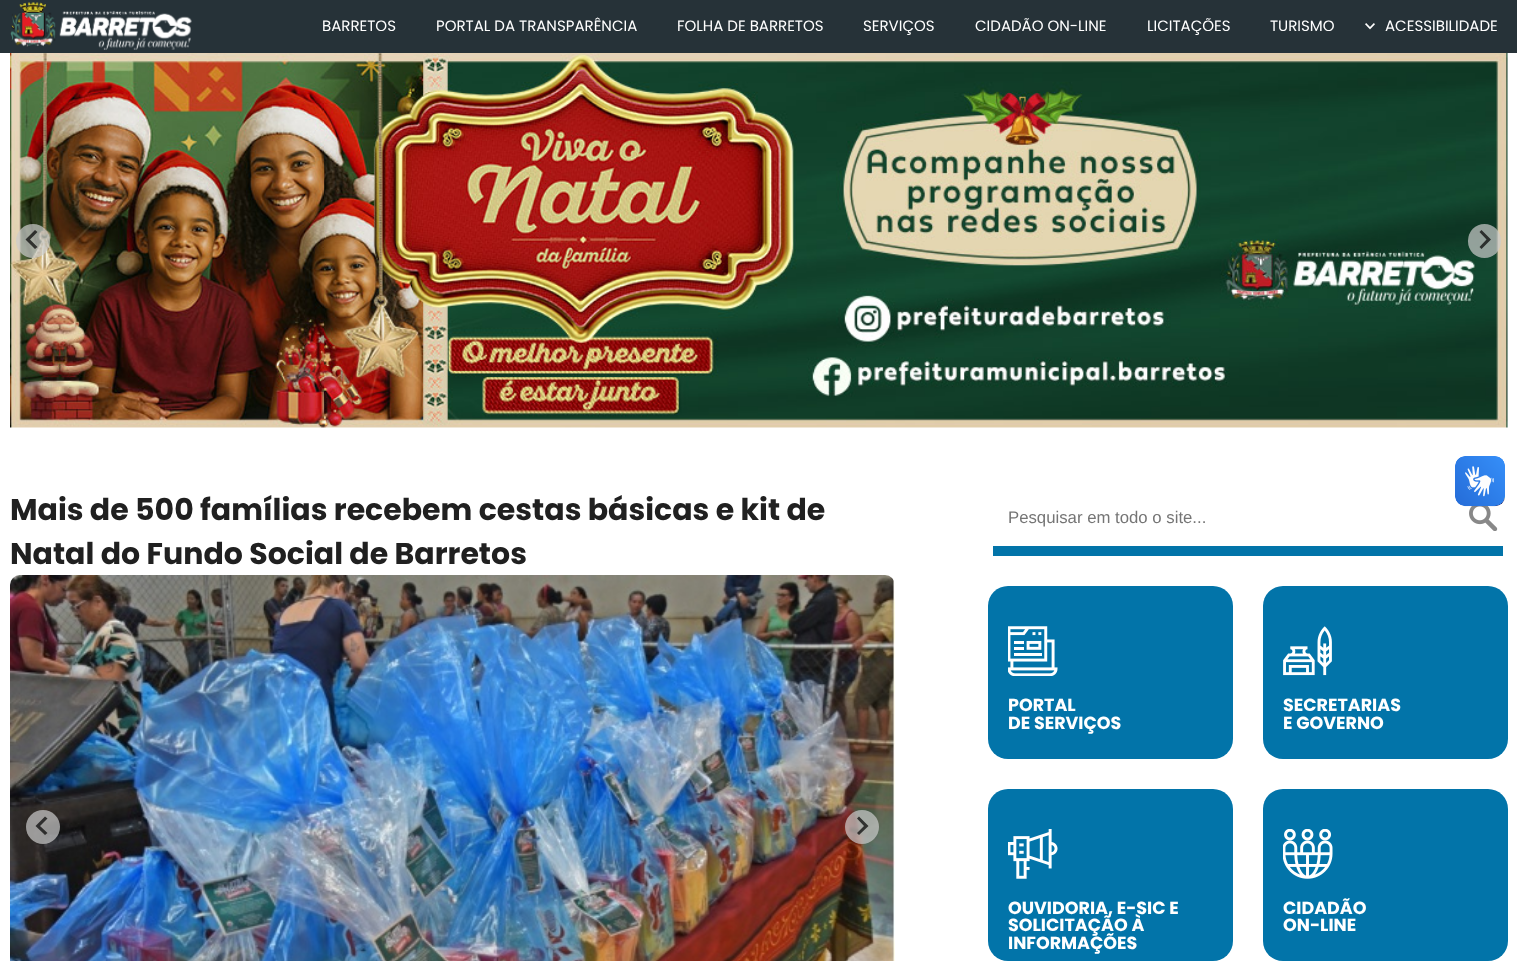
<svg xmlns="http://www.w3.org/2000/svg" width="1517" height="961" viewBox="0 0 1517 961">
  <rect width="100%" height="100%" fill="#fff"/>
  <path d="M0 0h1517v53H0z" fill="#263238"/>
  <image x="10" y="2" width="182" height="48" href="img/1.png"/>
  <image x="1365" y="23" width="10" height="7" href="img/2.png"/>
  <image x="1469" y="506" width="29" height="25" href="img/7.png"/>
  <image x="1455" y="456" width="50" height="51" href="img/3.png"/>
  <image x="1455" y="456" width="50" height="50" href="img/4.png"/>
  <image x="10" y="53" width="1498" height="375" href="img/5.png"/>
  <circle cx="33" cy="241" r="17" fill="#ccccccb3"/>
  <path d="M35 230L37.5 232L30 239.5L37.5 247L35 249L25.5 239.5Z" fill="#000000b3"/>
  <rect x="1468" y="224" width="33" height="34" rx="16.5" fill="#ccccccb3"/>
  <path d="M1481.5 230L1479.5 232L1486.5 239.5L1479.5 247L1481.5 249L1491 239.5Z" fill="#000000b3"/>
  <image x="10" y="575" width="885" height="386" href="img/6.png"/>
  <circle cx="43" cy="827" r="17" fill="#ccccccb3"/>
  <path d="M45 816.5L47.5 818.5L40 826L47.5 833L45 835L35.5 826Z" fill="#000000b3"/>
  <circle cx="862" cy="827" r="17" fill="#ccccccb3"/>
  <path d="M859 816.5L857 818.5L864 826L857 833L859 835L868.5 826Z" fill="#000000b3"/>
  <path d="M993 546h510v10H993z" fill="#0274a9"/>
  <rect x="988" y="586" width="245" height="173" rx="20" fill="#0274a9"/>
  <image x="1008" y="626" width="50" height="50" href="img/8.png"/>
  <rect x="1263" y="586" width="245" height="173" rx="20" fill="#0274a9"/>
  <image x="1283" y="626" width="49" height="50" href="img/9.png"/>
  <rect x="988" y="789" width="245" height="172" rx="20" fill="#0274a9"/>
  <image x="1008" y="829" width="50" height="50" href="img/10.png"/>
  <rect x="1263" y="789" width="245" height="172" rx="20" fill="#0274a9"/>
  <image x="1283" y="829" width="50" height="50" href="img/11.png"/>
  <g font-family="Poppins" font-size="15" fill="#fff">
    <text x="322" y="31">BARRETOS</text>
    <text x="436" y="31">PORTAL DA TRANSPARÊNCIA</text>
    <text x="677" y="31">FOLHA DE BARRETOS</text>
    <text x="863" y="31">SERVIÇOS</text>
    <text x="975" y="31">CIDADÃO ON-LINE</text>
    <text x="1147" y="31">LICITAÇÕES</text>
    <text x="1270" y="31">TURISMO</text>
    <text x="1385" y="31">ACESSIBILIDADE</text>
  </g>
  <g font-family="Poppins" font-size="30" font-weight="bold" fill="#202020">
    <text x="10" y="520">Mais de 500 famílias recebem cestas básicas e kit de</text>
    <text x="10" y="564">Natal do Fundo Social de Barretos</text>
  </g>
  <text x="1008" y="523" font-family="Liberation Sans" font-size="16.75" fill="#757575">Pesquisar em todo o site...</text>
  <g font-family="Poppins" font-size="17.5" font-weight="bold" fill="#fff">
    <text x="1008" y="711">PORTAL</text>
    <text x="1008" y="729">DE SERVIÇOS</text>
    <text x="1283" y="711">SECRETARIAS</text>
    <text x="1283" y="729">E GOVERNO</text>
    <text x="1008" y="914">OUVIDORIA, E-SIC E</text>
    <text x="1008" y="931">SOLICITAÇÃO À</text>
    <text x="1008" y="949">INFORMAÇÕES</text>
    <text x="1283" y="914">CIDADÃO</text>
    <text x="1283" y="931">ON-LINE</text>
  </g>
</svg>
